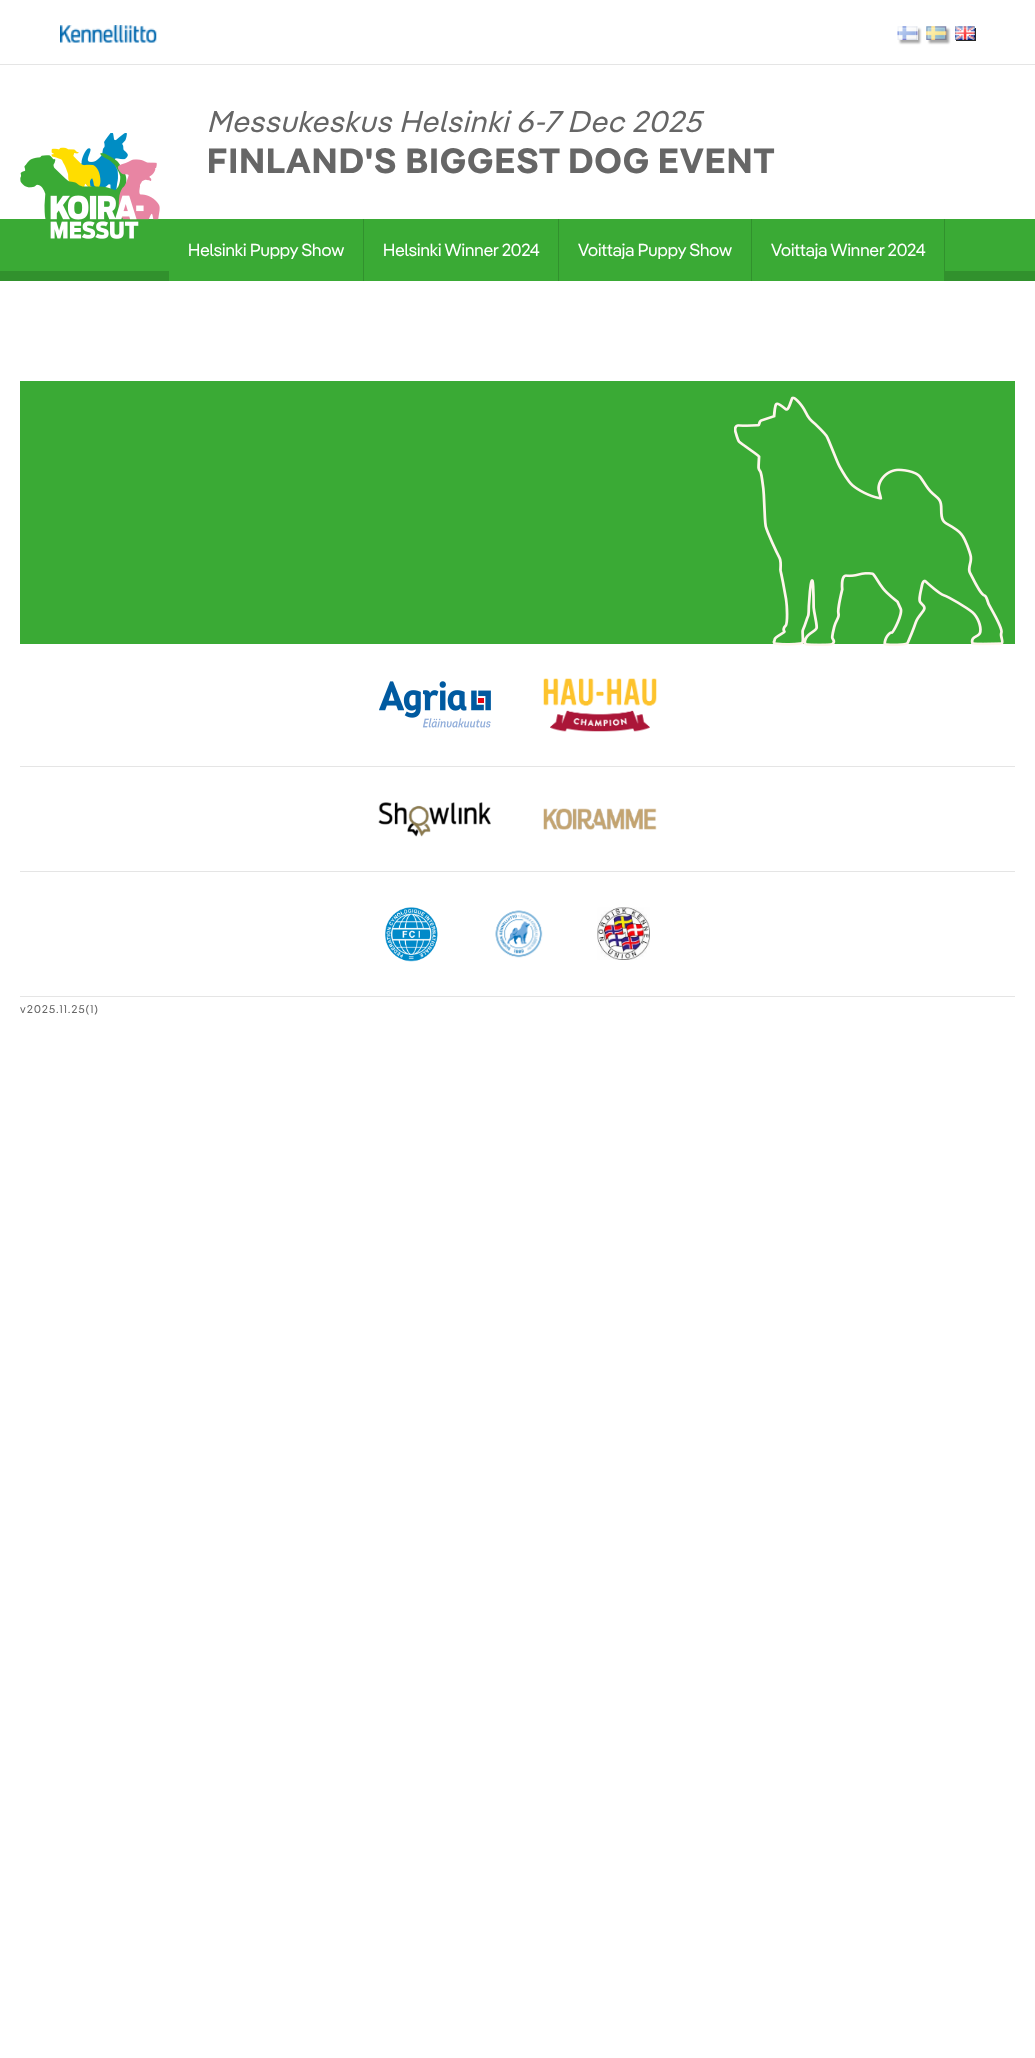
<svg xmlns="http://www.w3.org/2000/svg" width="1035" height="2058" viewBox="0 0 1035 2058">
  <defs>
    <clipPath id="clip1"><path d="M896 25H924V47H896ZM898 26H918V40H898Z" clip-rule="evenodd"/></clipPath>
    <clipPath id="clip2"><path d="M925 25H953V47H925ZM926 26H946V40H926Z" clip-rule="evenodd"/></clipPath>
  </defs>
  <rect width="100%" height="100%" fill="#fff"/>
  <path d="M0 64h1035v1H0z" fill="#e5e5e5"/>
  <image x="60" y="25" width="97" height="18" href="img/1.png"/>
  <g clip-path="url(#clip1)">
    <path d="M900 29h20v14H900z" fill="#a7a7a7" filter="blur(1px)"/>
  </g>
  <image x="897" y="26" width="21" height="14" href="img/2.png"/>
  <g clip-path="url(#clip2)">
    <path d="M929 29h20v14H929z" fill="#a7a7a7" filter="blur(1px)"/>
  </g>
  <image x="926" y="26" width="21" height="14" href="img/3.png"/>
  <path d="M956 28h20v13H956z" fill="#262626" filter="blur(0.5px)"/>
  <image x="955" y="26" width="20" height="14" href="img/4.png"/>
  <path d="M0 219h1035v52H0z" fill="#3aaa35"/>
  <path d="M0 271h1035v10H0z" fill="#31912d"/>
  <image x="20" y="133" width="140" height="106" href="img/5.png"/>
  <path d="M169 271h194v10H169z" fill="#3aaa35"/>
  <path d="M363 219h1v52H363z" fill="#31912d"/>
  <path d="M364 271h194v10H364z" fill="#3aaa35"/>
  <path d="M558 219h1v52H558z" fill="#31912d"/>
  <path d="M559 271h385v10H559z" fill="#3aaa35"/>
  <path d="M751 219h1v62H751z" fill="#31912d"/>
  <path d="M944 219h1v52H944z" fill="#31912d"/>
  <path d="M20 381h995v263H20z" fill="#3aaa35"/>
  <image x="734" y="396" width="270" height="250" href="img/6.png"/>
  <path d="M20 766h995v1H20z" fill="#e5e5e5"/>
  <image x="379" y="681" width="112" height="47" href="img/7.png"/>
  <image x="543" y="678" width="114" height="54" href="img/8.png"/>
  <path d="M20 871h995v1H20z" fill="#e5e5e5"/>
  <image x="378" y="802" width="113" height="35" href="img/9.png"/>
  <image x="543" y="808" width="114" height="22" href="img/10.png"/>
  <path d="M20 996h995v1H20z" fill="#e5e5e5"/>
  <image x="385" y="907" width="53" height="55" href="img/11.png"/>
  <image x="495" y="910" width="48" height="48" href="img/12.png"/>
  <image x="597" y="907" width="53" height="53" href="img/13.png"/>
  <text x="207" y="132" font-family="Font" font-size="30" font-style="italic" letter-spacing="1.25" fill="#666">Messukeskus Helsinki 6-7 Dec 2025</text>
  <text x="207" y="173" font-family="Font" font-size="35" font-weight="bold" letter-spacing="1.25" fill="#666">FINLAND'S BIGGEST DOG EVENT</text>
  <g font-family="Font" font-size="17.5" fill="#fff">
    <text x="188" y="256">Helsinki Puppy Show</text>
    <text x="383" y="256">Helsinki Winner 2024</text>
    <text x="578" y="256">Voittaja Puppy Show</text>
    <text x="771" y="256">Voittaja Winner 2024</text>
  </g>
  <text x="20" y="1013" font-family="Font" font-size="11.25" letter-spacing="1.25" fill="#666">v2025.11.25(1)</text>
</svg>
